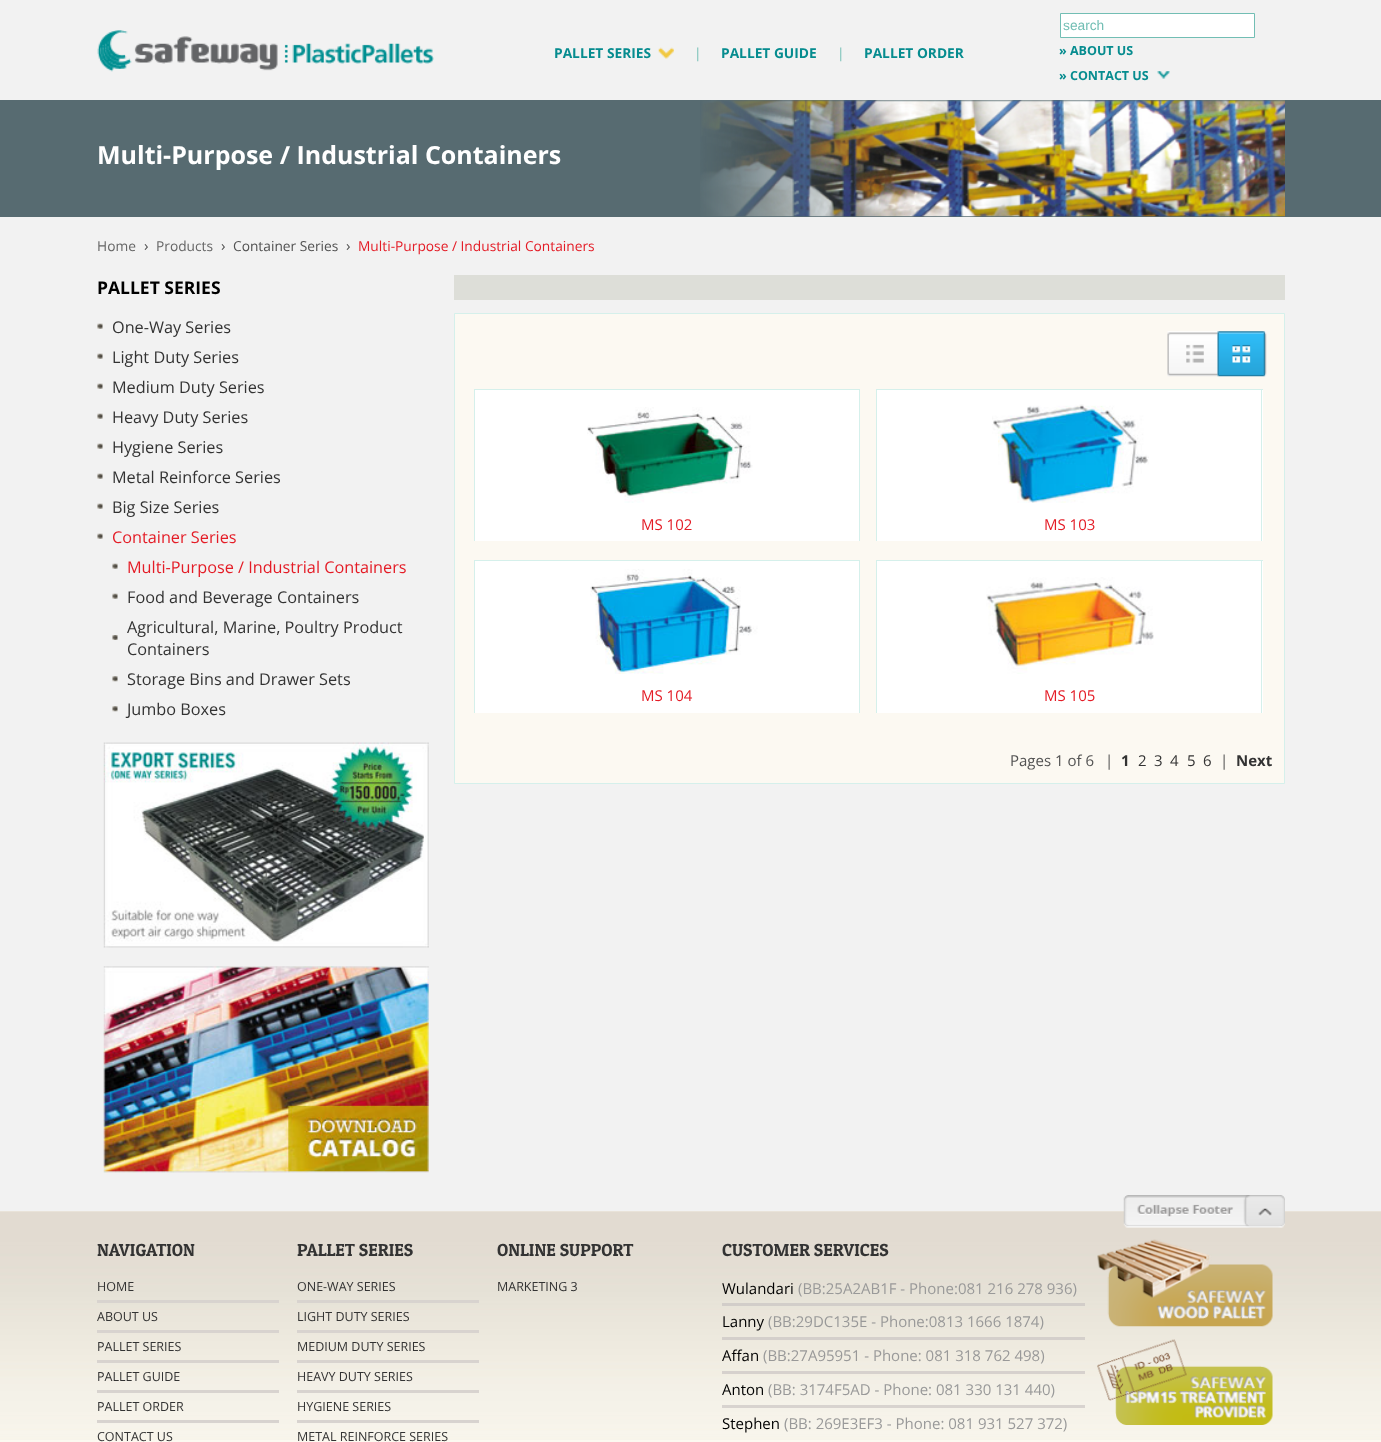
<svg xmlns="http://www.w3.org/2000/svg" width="1381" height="1442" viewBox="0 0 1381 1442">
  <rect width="100%" height="100%" fill="#f2f2f2"/>
  <image x="97" y="30" width="337" height="42" href="img/1.png"/>
  <image x="658" y="47" width="16" height="12" href="img/2.png"/>
  <path d="M1060.5 13.5h194v24H1060.5z" fill="#fff" stroke="#72beb4"/>
  <image x="1157" y="71" width="13" height="8" href="img/3.png"/>
  <path d="M0 100h1381v117H0z" fill="#576b71"/>
  <image x="700" y="100" width="585" height="117" href="img/4.png"/>
  <image x="97" y="323" width="6" height="6" href="img/5.png"/>
  <image x="97" y="353" width="6" height="6" href="img/5.png"/>
  <image x="97" y="383" width="6" height="6" href="img/5.png"/>
  <image x="97" y="413" width="6" height="6" href="img/5.png"/>
  <image x="97" y="443" width="6" height="6" href="img/5.png"/>
  <image x="97" y="473" width="6" height="6" href="img/5.png"/>
  <image x="97" y="503" width="6" height="6" href="img/5.png"/>
  <image x="97" y="533" width="6" height="6" href="img/5.png"/>
  <image x="112" y="563" width="6" height="6" href="img/5.png"/>
  <image x="112" y="593" width="6" height="6" href="img/5.png"/>
  <image x="112" y="635" width="6" height="5" href="img/6.png"/>
  <image x="112" y="676" width="6" height="6" href="img/7.png"/>
  <image x="112" y="706" width="6" height="6" href="img/7.png"/>
  <image x="103" y="742" width="326" height="206" href="img/8.png"/>
  <image x="103" y="966" width="326" height="207" href="img/9.png"/>
  <path d="M454 275h831v25H454z" fill="#ddded8"/>
  <path d="M454.5 313.5h830v470H454.5z" fill="#fcf9f2" stroke="#d5f0eb"/>
  <image x="1167" y="331" width="51" height="46" href="img/10.png"/>
  <image x="1217" y="331" width="50" height="46" href="img/11.png"/>
  <path d="M475 390h384v151H475z" fill="#fff"/>
  <path d="M474 389h386v1H474z" fill="#d5f0eb"/>
  <path d="M859 389h1v152H859z" fill="#d5f0eb"/>
  <path d="M474 389h1v152H474z" fill="#d5f0eb"/>
  <image x="587" y="407" width="166" height="96" href="img/12.png"/>
  <path d="M877 390h386v151H877z" fill="#fff"/>
  <path d="M876 389h387v1H876z" fill="#d5f0eb"/>
  <path d="M1261 389h1v152H1261z" fill="#d5f0eb"/>
  <path d="M876 389h1v152H876z" fill="#d5f0eb"/>
  <image x="992" y="404" width="157" height="99" href="img/13.png"/>
  <path d="M475 561h384v152H475z" fill="#fff"/>
  <path d="M474 560h386v1H474z" fill="#d5f0eb"/>
  <path d="M859 560h1v153H859z" fill="#d5f0eb"/>
  <path d="M474 560h1v153H474z" fill="#d5f0eb"/>
  <image x="590" y="569" width="168" height="105" href="img/14.png"/>
  <path d="M877 561h386v152H877z" fill="#fff"/>
  <path d="M876 560h387v1H876z" fill="#d5f0eb"/>
  <path d="M1261 560h1v153H1261z" fill="#d5f0eb"/>
  <path d="M876 560h1v153H876z" fill="#d5f0eb"/>
  <image x="986" y="577" width="168" height="97" href="img/15.png"/>
  <path d="M0 1211h1381v231H0z" fill="#fcf9f0"/>
  <image x="0" y="1211" width="1381" height="229" href="img/16.png"/>
  <image x="1123" y="1195" width="162" height="33" href="img/17.png"/>
  <path d="M97 1300h182v3H97z" fill="#d8d3cf"/>
  <path d="M97 1330h182v3H97z" fill="#d8d3cf"/>
  <path d="M97 1360h182v3H97z" fill="#d8d3cf"/>
  <path d="M97 1390h182v3H97z" fill="#d8d3cf"/>
  <path d="M97 1420h182v3H97z" fill="#d8d3cf"/>
  <path d="M297 1300h182v3H297z" fill="#d8d3cf"/>
  <path d="M297 1330h182v3H297z" fill="#d8d3cf"/>
  <path d="M297 1360h182v3H297z" fill="#d8d3cf"/>
  <path d="M297 1390h182v3H297z" fill="#d8d3cf"/>
  <path d="M297 1420h182v3H297z" fill="#d8d3cf"/>
  <path d="M722 1303h363v3H722z" fill="#d2cdc9"/>
  <path d="M722 1337h363v3H722z" fill="#d4cfcb"/>
  <path d="M722 1371h363v3H722z" fill="#d6d1cd"/>
  <path d="M722 1405h363v3H722z" fill="#d8d3cf"/>
  <image x="1097" y="1239" width="176" height="88" href="img/18.png"/>
  <image x="1097" y="1339" width="176" height="86" href="img/19.png"/>
  <text x="554" y="58" font-family="Open Sans" font-size="13.75" font-weight="bold" fill="#068c8f">PALLET SERIES</text>
  <text x="694" y="58" font-family="Open Sans" font-size="13.75" fill="#72beb4">|</text>
  <text x="721" y="58" font-family="Open Sans" font-size="13.75" font-weight="bold" fill="#068c8f">PALLET GUIDE</text>
  <text x="837" y="58" font-family="Open Sans" font-size="13.75" fill="#72beb4">|</text>
  <text x="864" y="58" font-family="Open Sans" font-size="13.75" font-weight="bold" fill="#068c8f">PALLET ORDER</text>
  <text x="1063" y="30" font-family="Liberation Sans" font-size="13.75" fill="#72beb4">search</text>
  <g font-family="Open Sans" font-size="12.5" font-weight="bold" fill="#068c8f">
    <text x="1059" y="55">» ABOUT US</text>
    <text x="1059" y="80">» CONTACT US</text>
  </g>
  <text x="97" y="164" font-family="Open Sans" font-size="25" font-weight="bold" fill="#fff">Multi-Purpose / Industrial Containers</text>
  <text x="97" y="251" font-family="Open Sans" font-size="13.75" fill="#666">Home</text>
  <text x="144" y="251" font-family="Open Sans" font-size="15" fill="#525252">›</text>
  <text x="156" y="251" font-family="Open Sans" font-size="13.75" fill="#666">Products</text>
  <text x="221" y="251" font-family="Open Sans" font-size="15" fill="#525252">›</text>
  <text x="233" y="251" font-family="Open Sans" font-size="13.75" fill="#525252">Container Series</text>
  <text x="346" y="251" font-family="Open Sans" font-size="15" fill="#525252">›</text>
  <text x="358" y="251" font-family="Open Sans" font-size="13.75" fill="#e41c26">Multi-Purpose / Industrial Containers</text>
  <text x="97" y="294" font-family="Open Sans" font-size="17.5" font-weight="bold" fill="#000">PALLET SERIES</text>
  <g font-family="Open Sans" font-size="16.25" fill="#333">
    <text x="112" y="333">One-Way Series</text>
    <text x="112" y="363">Light Duty Series</text>
    <text x="112" y="393">Medium Duty Series</text>
    <text x="112" y="423">Heavy Duty Series</text>
    <text x="112" y="453">Hygiene Series</text>
    <text x="112" y="483">Metal Reinforce Series</text>
    <text x="112" y="513">Big Size Series</text>
  </g>
  <g font-family="Open Sans" font-size="16.25" fill="#e41c26">
    <text x="112" y="543">Container Series</text>
    <text x="127" y="573">Multi-Purpose / Industrial Containers</text>
  </g>
  <g font-family="Open Sans" font-size="16.25" fill="#333">
    <text x="127" y="603">Food and Beverage Containers</text>
    <text x="127" y="633">Agricultural, Marine, Poultry Product</text>
    <text x="127" y="655">Containers</text>
    <text x="127" y="685">Storage Bins and Drawer Sets</text>
    <text x="127" y="715">Jumbo Boxes</text>
  </g>
  <g font-family="Open Sans" font-size="15" fill="#e41c26">
    <text x="641" y="530">MS 102</text>
    <text x="1044" y="530">MS 103</text>
    <text x="641" y="701">MS 104</text>
    <text x="1044" y="701">MS 105</text>
  </g>
  <g font-family="Open Sans" font-size="15" fill="#525252">
    <text x="1010" y="766">Pages 1 of 6</text>
    <text x="1105" y="766">|</text>
  </g>
  <text x="1121" y="766" font-family="Open Sans" font-size="15" font-weight="bold" fill="#333">1</text>
  <g font-family="Open Sans" font-size="15" fill="#333">
    <text x="1138" y="766">2</text>
    <text x="1154" y="766">3</text>
    <text x="1170" y="766">4</text>
    <text x="1187" y="766">5</text>
    <text x="1203" y="766">6</text>
  </g>
  <text x="1220" y="766" font-family="Open Sans" font-size="15" fill="#525252">|</text>
  <text x="1236" y="766" font-family="Open Sans" font-size="15" font-weight="bold" fill="#333">Next</text>
  <text x="97" y="1256" font-family="Patua One" font-size="17.5" fill="#333">NAVIGATION</text>
  <g font-family="Open Sans" font-size="12.5" fill="#333">
    <text x="97" y="1291">HOME</text>
    <text x="97" y="1321">ABOUT US</text>
    <text x="97" y="1351">PALLET SERIES</text>
    <text x="97" y="1381">PALLET GUIDE</text>
    <text x="97" y="1411">PALLET ORDER</text>
    <text x="97" y="1441">CONTACT US</text>
  </g>
  <text x="297" y="1256" font-family="Patua One" font-size="17.5" fill="#333">PALLET SERIES</text>
  <g font-family="Open Sans" font-size="12.5" fill="#333">
    <text x="297" y="1291">ONE-WAY SERIES</text>
    <text x="297" y="1321">LIGHT DUTY SERIES</text>
    <text x="297" y="1351">MEDIUM DUTY SERIES</text>
    <text x="297" y="1381">HEAVY DUTY SERIES</text>
    <text x="297" y="1411">HYGIENE SERIES</text>
    <text x="297" y="1441">METAL REINFORCE SERIES</text>
  </g>
  <text x="497" y="1256" font-family="Patua One" font-size="17.5" fill="#333">ONLINE SUPPORT</text>
  <text x="497" y="1291" font-family="Open Sans" font-size="12.5" fill="#333">MARKETING 3</text>
  <text x="722" y="1256" font-family="Patua One" font-size="17.5" fill="#333">CUSTOMER SERVICES</text>
  <text x="722" y="1294" font-family="Open Sans" font-size="15" fill="#000">Wulandari</text>
  <text x="798" y="1294" font-family="Open Sans" font-size="15" fill="#999">(BB:25A2AB1F - Phone:081 216 278 936)</text>
  <text x="722" y="1327" font-family="Open Sans" font-size="15" fill="#000">Lanny</text>
  <text x="768" y="1327" font-family="Open Sans" font-size="15" fill="#999">(BB:29DC135E - Phone:0813 1666 1874)</text>
  <text x="722" y="1361" font-family="Open Sans" font-size="15" fill="#000">Affan</text>
  <text x="763" y="1361" font-family="Open Sans" font-size="15" fill="#999">(BB:27A95951 - Phone: 081 318 762 498)</text>
  <text x="722" y="1395" font-family="Open Sans" font-size="15" fill="#000">Anton</text>
  <text x="768" y="1395" font-family="Open Sans" font-size="15" fill="#999">(BB: 3174F5AD - Phone: 081 330 131 440)</text>
  <text x="722" y="1429" font-family="Open Sans" font-size="15" fill="#000">Stephen</text>
  <text x="784" y="1429" font-family="Open Sans" font-size="15" fill="#999">(BB: 269E3EF3 - Phone: 081 931 527 372)</text>
</svg>
